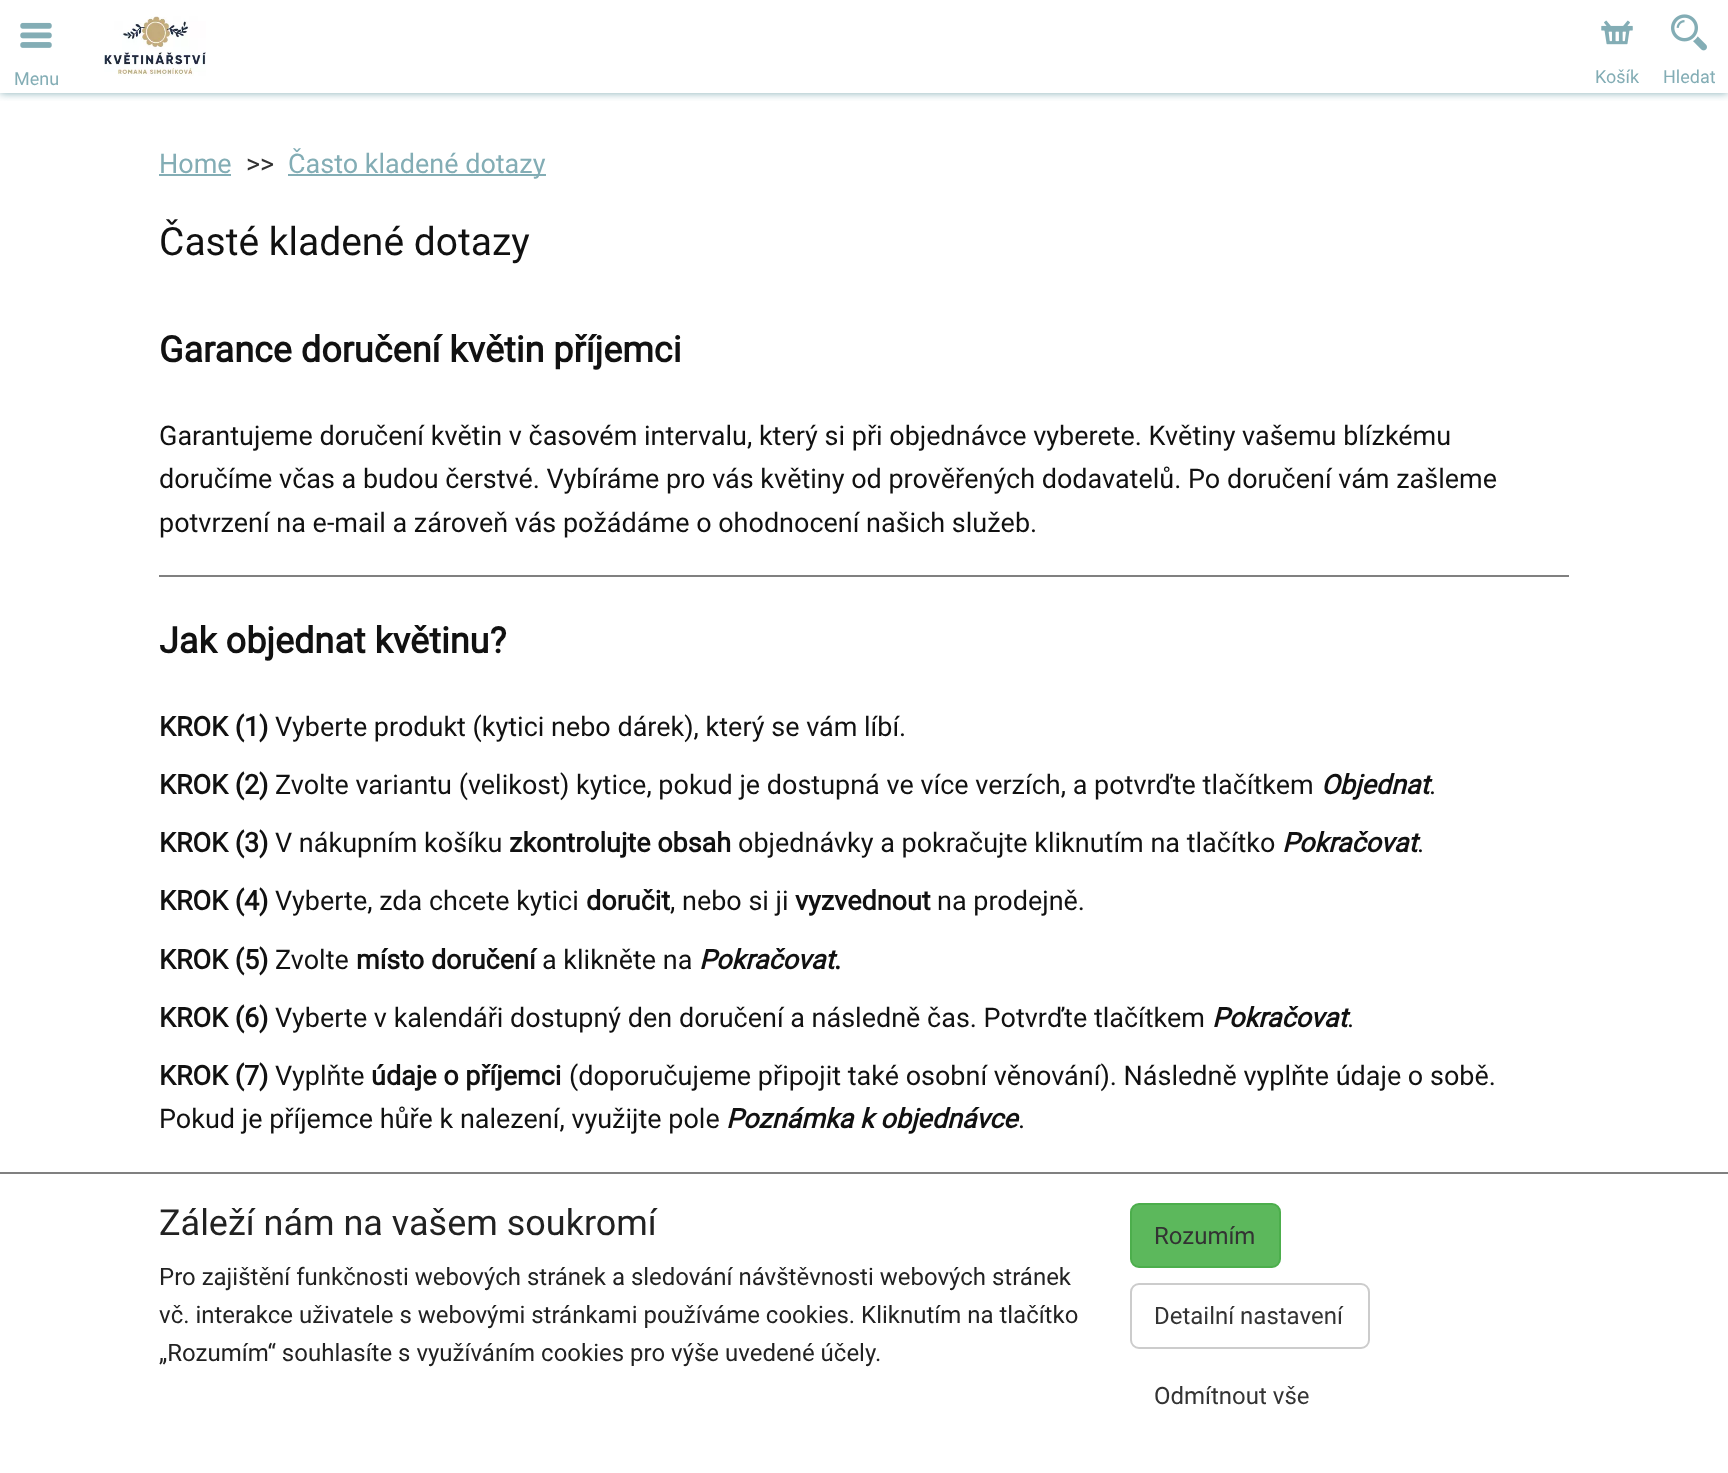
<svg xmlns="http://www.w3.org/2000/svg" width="1728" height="1473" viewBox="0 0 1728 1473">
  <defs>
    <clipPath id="clip1"><path d="M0 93h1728v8H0z"/></clipPath>
  </defs>
  <rect width="100%" height="100%" fill="#fff"/>
  <g clip-path="url(#clip1)">
    <path d="M0 0h1728v93H0z" fill="#83adb5" filter="blur(4px)"/>
  </g>
  <image x="20" y="22" width="32" height="26" href="img/1.png"/>
  <image x="104" y="16" width="102" height="60" href="img/2.png"/>
  <image x="1601" y="20" width="32" height="25" href="img/3.png"/>
  <image x="1671" y="14" width="36" height="37" href="img/4.png"/>
  <path d="M159 174h72v2H159z" fill="#83adb5"/>
  <path d="M288 174h258v2H288z" fill="#83adb5"/>
  <path d="M159 575h1410v2H159z" fill="#808080"/>
  <path d="M0 1172h1728v2H0z" fill="#808080"/>
  <rect x="1131" y="1204" width="149" height="63" rx="8" fill="#5cb85c" stroke="#4cae4c" stroke-width="2"/>
  <rect x="1131" y="1284" width="238" height="64" rx="8" fill="none" stroke="#ccc" stroke-width="2"/>
  <g font-family="Roboto" font-size="18" fill="#83adb5">
    <text x="14" y="85">Menu</text>
    <text x="1595" y="83">Košík</text>
    <text x="1663" y="83">Hledat</text>
  </g>
  <text x="159" y="173" font-family="Roboto" font-size="27" fill="#83adb5">Home</text>
  <text x="246" y="173" font-family="Roboto" font-size="27" fill="#333">&gt;&gt;</text>
  <text x="288" y="173" font-family="Roboto" font-size="27" fill="#83adb5">Často kladené dotazy</text>
  <text x="159" y="255" font-family="Roboto" font-size="39" fill="#111">Časté kladené dotazy</text>
  <text x="159" y="362" font-family="Roboto" font-size="36" font-weight="bold" fill="#111">Garance doručení květin příjemci</text>
  <g font-family="Roboto" font-size="27" fill="#111">
    <text x="159" y="445">Garantujeme doručení květin v časovém intervalu, který si při objednávce vyberete. Květiny vašemu blízkému</text>
    <text x="159" y="488">doručíme včas a budou čerstvé. Vybíráme pro vás květiny od prověřených dodavatelů. Po doručení vám zašleme</text>
    <text x="159" y="532">potvrzení na e-mail a zároveň vás požádáme o ohodnocení našich služeb.</text>
  </g>
  <text x="159" y="653" font-family="Roboto" font-size="36" font-weight="bold" fill="#111">Jak objednat květinu?</text>
  <text x="159" y="736" font-family="Roboto" font-size="27" font-weight="bold" fill="#111">KROK (1)</text>
  <text x="275" y="736" font-family="Roboto" font-size="27" fill="#111">Vyberte produkt (kytici nebo dárek), který se vám líbí.</text>
  <text x="159" y="794" font-family="Roboto" font-size="27" font-weight="bold" fill="#111">KROK (2)</text>
  <text x="275" y="794" font-family="Roboto" font-size="27" fill="#111">Zvolte variantu (velikost) kytice, pokud je dostupná ve více verzích, a potvrďte tlačítkem</text>
  <text x="1321" y="794" font-family="Roboto" font-size="27" font-weight="bold" font-style="italic" fill="#111">Objednat</text>
  <text x="1429" y="794" font-family="Roboto" font-size="27" fill="#111">.</text>
  <text x="159" y="852" font-family="Roboto" font-size="27" font-weight="bold" fill="#111">KROK (3)</text>
  <text x="275" y="852" font-family="Roboto" font-size="27" fill="#111">V nákupním košíku</text>
  <text x="509" y="852" font-family="Roboto" font-size="27" font-weight="bold" fill="#111">zkontrolujte obsah</text>
  <text x="738" y="852" font-family="Roboto" font-size="27" fill="#111">objednávky a pokračujte kliknutím na tlačítko</text>
  <text x="1282" y="852" font-family="Roboto" font-size="27" font-weight="bold" font-style="italic" fill="#111">Pokračovat</text>
  <text x="1417" y="852" font-family="Roboto" font-size="27" fill="#111">.</text>
  <text x="159" y="910" font-family="Roboto" font-size="27" font-weight="bold" fill="#111">KROK (4)</text>
  <text x="275" y="910" font-family="Roboto" font-size="27" fill="#111">Vyberte, zda chcete kytici</text>
  <text x="586" y="910" font-family="Roboto" font-size="27" font-weight="bold" fill="#111">doručit</text>
  <text x="670" y="910" font-family="Roboto" font-size="27" fill="#111">, nebo si ji</text>
  <text x="795" y="910" font-family="Roboto" font-size="27" font-weight="bold" fill="#111">vyzvednout</text>
  <text x="937" y="910" font-family="Roboto" font-size="27" fill="#111">na prodejně.</text>
  <text x="159" y="969" font-family="Roboto" font-size="27" font-weight="bold" fill="#111">KROK (5)</text>
  <text x="275" y="969" font-family="Roboto" font-size="27" fill="#111">Zvolte</text>
  <text x="356" y="969" font-family="Roboto" font-size="27" font-weight="bold" fill="#111">místo doručení</text>
  <text x="542" y="969" font-family="Roboto" font-size="27" fill="#111">a klikněte na</text>
  <text x="699" y="969" font-family="Roboto" font-size="27" font-weight="bold" font-style="italic" fill="#111">Pokračovat</text>
  <g font-family="Roboto" font-size="27" font-weight="bold" fill="#111">
    <text x="834" y="969">.</text>
    <text x="159" y="1027">KROK (6)</text>
  </g>
  <text x="275" y="1027" font-family="Roboto" font-size="27" fill="#111">Vyberte v kalendáři dostupný den doručení a následně čas. Potvrďte tlačítkem</text>
  <text x="1212" y="1027" font-family="Roboto" font-size="27" font-weight="bold" font-style="italic" fill="#111">Pokračovat</text>
  <text x="1347" y="1027" font-family="Roboto" font-size="27" fill="#111">.</text>
  <text x="159" y="1085" font-family="Roboto" font-size="27" font-weight="bold" fill="#111">KROK (7)</text>
  <text x="275" y="1085" font-family="Roboto" font-size="27" fill="#111">Vyplňte</text>
  <text x="371" y="1085" font-family="Roboto" font-size="27" font-weight="bold" fill="#111">údaje o příjemci</text>
  <g font-family="Roboto" font-size="27" fill="#111">
    <text x="569" y="1085">(doporučujeme připojit také osobní věnování). Následně vyplňte údaje o sobě.</text>
    <text x="159" y="1128">Pokud je příjemce hůře k nalezení, využijte pole</text>
  </g>
  <text x="726" y="1128" font-family="Roboto" font-size="27" font-weight="bold" font-style="italic" fill="#111">Poznámka k objednávce</text>
  <text x="1018" y="1128" font-family="Roboto" font-size="27" fill="#111">.</text>
  <text x="159" y="1235" font-family="Roboto" font-size="36" fill="#222">Záleží nám na vašem soukromí</text>
  <g font-family="Roboto" font-size="24" fill="#222">
    <text x="159" y="1285">Pro zajištění funkčnosti webových stránek a sledování návštěvnosti webových stránek</text>
    <text x="159" y="1323">vč. interakce uživatele s webovými stránkami používáme cookies. Kliknutím na tlačítko</text>
    <text x="159" y="1361">„Rozumím“ souhlasíte s využíváním cookies pro výše uvedené účely.</text>
  </g>
  <g font-family="Roboto" font-size="24" fill="#333">
    <text x="1154" y="1244">Rozumím</text>
    <text x="1154" y="1324">Detailní nastavení</text>
    <text x="1154" y="1404">Odmítnout vše</text>
  </g>
</svg>
